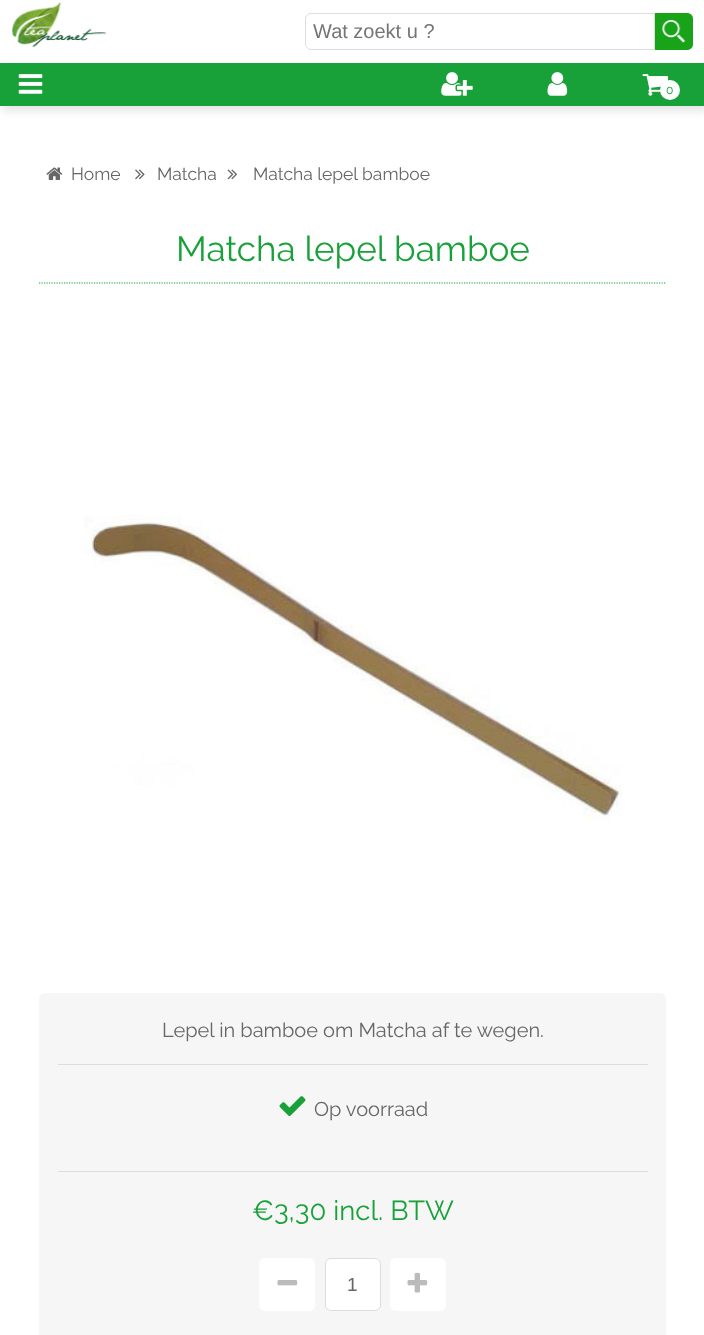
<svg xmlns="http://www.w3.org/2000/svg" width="704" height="1335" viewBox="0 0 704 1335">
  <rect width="100%" height="100%" fill="#fff"/>
  <image x="12" y="2" width="95" height="46" href="img/1.png"/>
  <path d="M311 13.5H654.5V49.5H311C308 49.5 305.5 47 305.5 44V19C305.5 16 308 13.5 311 13.5Z" fill="none" stroke="#ddd"/>
  <path d="M655 13H687C690.5 13 693 15.5 693 19V44C693 47.5 690.5 50 687 50H655Z" fill="#19a319"/>
  <image x="662" y="20" width="24" height="23" href="img/2.png"/>
  <path d="M3 68h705v43H3z" fill="#0a00001a" filter="blur(4.5px)"/>
  <path d="M0 63h704v43H0z" fill="#19a139"/>
  <image x="18" y="74" width="25" height="20" href="img/3.png"/>
  <image x="441" y="72" width="32" height="24" href="img/4.png"/>
  <image x="547" y="72" width="21" height="24" href="img/5.png"/>
  <image x="642" y="74" width="27" height="22" href="img/6.png"/>
  <circle cx="670" cy="90" r="10" fill="#fff"/>
  <image x="46" y="167" width="17" height="13" href="img/7.png"/>
  <image x="135" y="169" width="10" height="11" href="img/8.png"/>
  <image x="227" y="169" width="10" height="11" href="img/9.png"/>
  <path d="M39 283H666" fill="none" stroke="#19a139" stroke-width="1.2" stroke-dasharray="1.25 1.25"/>
  <image x="84" y="515" width="538" height="307" href="img/10.png"/>
  <rect x="39" y="993" width="627" height="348" rx="6" fill="#f6f6f6"/>
  <path d="M58 1064h590v1H58z" fill="#ddd"/>
  <image x="279" y="1096" width="27" height="20" href="img/11.png"/>
  <path d="M58 1171h590v1H58z" fill="#ddd"/>
  <rect x="259" y="1258" width="56" height="53" rx="6" fill="#fff"/>
  <image x="277" y="1280" width="21" height="6" href="img/12.png"/>
  <rect x="325.5" y="1258.5" width="55" height="52" rx="5.5" fill="#fff" stroke="#ddd"/>
  <rect x="390" y="1258" width="56" height="53" rx="6" fill="#fff"/>
  <image x="407" y="1272" width="21" height="21" href="img/13.png"/>
  <text x="313" y="38" font-family="Liberation Sans" font-size="20" fill="#757575">Wat zoekt u ?</text>
  <text x="666" y="94" font-family="Raleway" font-size="12" fill="#19a139">0</text>
  <g font-family="Raleway" font-size="17.5" fill="#666">
    <text x="71" y="180">Home</text>
    <text x="157" y="180">Matcha</text>
    <text x="253" y="180">Matcha lepel bamboe</text>
  </g>
  <text x="176" y="261" font-family="Raleway" font-size="35" fill="#19a139">Matcha lepel bamboe</text>
  <g font-family="Raleway" font-size="20" fill="#666">
    <text x="162" y="1037">Lepel in bamboe om Matcha af te wegen.</text>
    <text x="314" y="1116">Op voorraad</text>
  </g>
  <text x="252" y="1220" font-family="Raleway" font-size="27.5" fill="#19a139">€3,30 incl. BTW</text>
  <text x="347" y="1291" font-family="Liberation Sans" font-size="19" fill="#666">1</text>
</svg>
